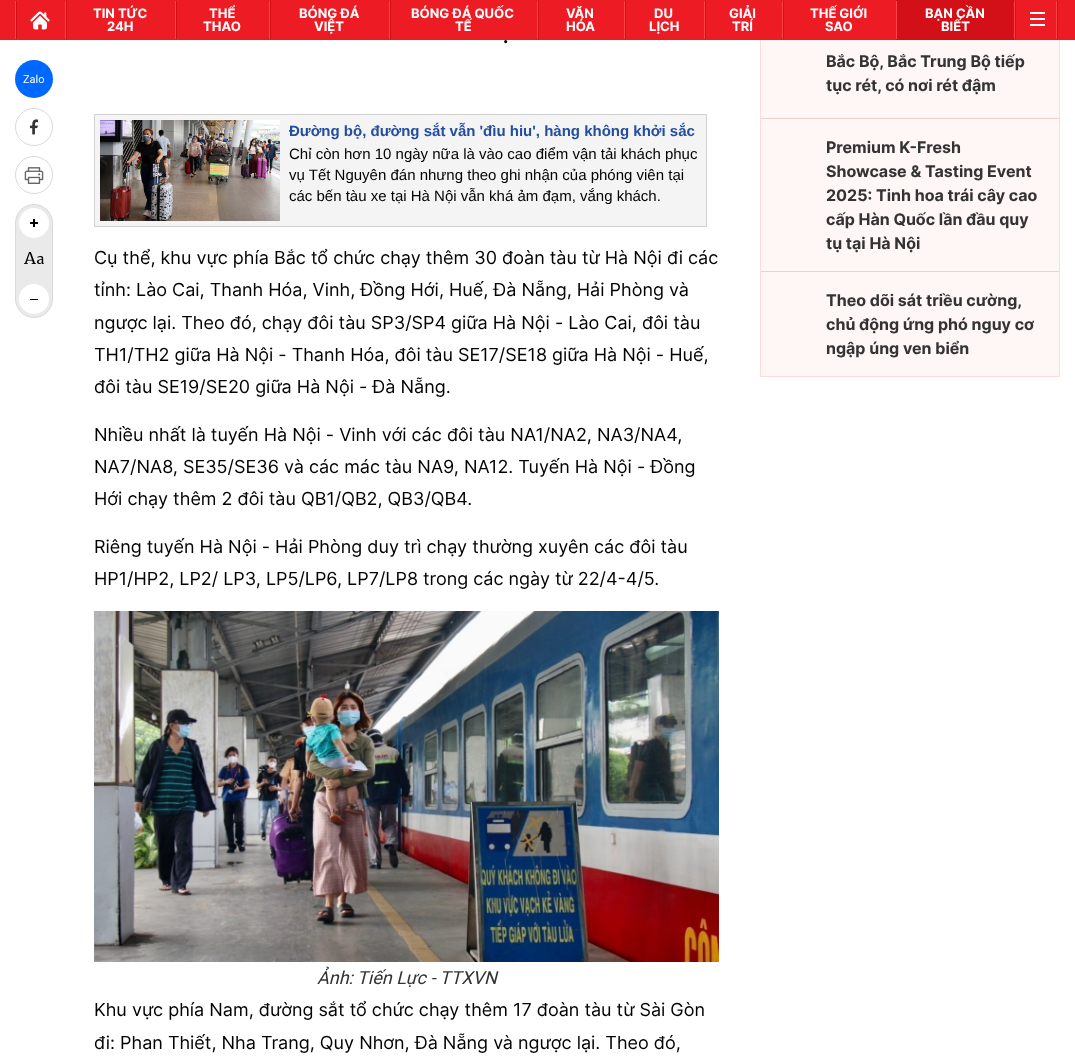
<svg xmlns="http://www.w3.org/2000/svg" width="1075" height="1062" viewBox="0 0 1075 1062">
  <rect width="100%" height="100%" fill="#fff"/>
  <path d="M1060-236V377L1059 376V-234Z" fill="#ffdbdb"/>
  <path d="M760 376h300v1H760z" fill="#ffdbdb"/>
  <path d="M760 377V-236L761-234V376Z" fill="#ffdbdb"/>
  <path d="M0 0h1075v40H0z" fill="#ed1c24"/>
  <path d="M15 1h1v38H15z" fill="#ff4148"/>
  <path d="M16 1h1v38H16z" fill="#d31018"/>
  <image x="30" y="11" width="20" height="19" href="img/1.png"/>
  <path d="M65 1h1v38H65z" fill="#ff4148"/>
  <path d="M66 1h1v38H66z" fill="#d31018"/>
  <path d="M175 1h1v38H175z" fill="#ff4148"/>
  <path d="M176 1h1v38H176z" fill="#d31018"/>
  <path d="M269 1h1v38H269z" fill="#ff4148"/>
  <path d="M270 1h1v38H270z" fill="#d31018"/>
  <path d="M389 1h1v38H389z" fill="#ff4148"/>
  <path d="M390 1h1v38H390z" fill="#d31018"/>
  <path d="M537 1h1v38H537z" fill="#ff4148"/>
  <path d="M538 1h1v38H538z" fill="#d31018"/>
  <path d="M624 1h1v38H624z" fill="#ff4148"/>
  <path d="M625 1h1v38H625z" fill="#d31018"/>
  <path d="M704 1h1v38H704z" fill="#ff4148"/>
  <path d="M705 1h1v38H705z" fill="#d31018"/>
  <path d="M782 1h1v38H782z" fill="#ff4148"/>
  <path d="M783 1h1v38H783z" fill="#d31018"/>
  <path d="M896 0h118v40H896z" fill="#d31018"/>
  <path d="M896 1h1v38H896z" fill="#ff4148"/>
  <path d="M1014 1h1v38H1014z" fill="#ff4148"/>
  <path d="M1015 1h1v38H1015z" fill="#d31018"/>
  <path d="M1030 12h15v2H1030z" fill="#fff"/>
  <path d="M1030 18h15v2H1030z" fill="#fff"/>
  <path d="M1030 24h15v2H1030z" fill="#fff"/>
  <path d="M1056 1h1v38H1056z" fill="#ff4148"/>
  <path d="M1057 1h1v38H1057z" fill="#d31018"/>
  <circle cx="34" cy="79" r="19" fill="#0068ff"/>
  <circle cx="34" cy="127" r="18.5" fill="none" stroke="#d9d9d9"/>
  <image x="30" y="119" width="8" height="16" href="img/2.png"/>
  <circle cx="34" cy="175" r="18.5" fill="none" stroke="#d9d9d9"/>
  <image x="24" y="167" width="20" height="17" href="img/3.png"/>
  <rect x="15.5" y="204.5" width="37" height="113" rx="18.5" fill="#eaeaea" stroke="#d9d9d9"/>
  <circle cx="34" cy="223" r="15" fill="#fff"/>
  <path d="M30 222h8v2H30z" fill="#000"/>
  <path d="M33 219h2v8H33z" fill="#000"/>
  <image x="24" y="252" width="20" height="12" href="img/4.png"/>
  <circle cx="34" cy="299" r="15" fill="#fff"/>
  <path d="M30 299h8v1H30z" fill="#000"/>
  <path d="M94.5 114.5h612v112H94.5z" fill="#f4f4f4" stroke="#d1d1d1"/>
  <image x="100" y="120" width="180" height="101" href="img/5.png"/>
  <image x="94" y="611" width="625" height="351" href="img/6.png"/>
  <path d="M761 40h298v336H761z" fill="#fff6f6"/>
  <path d="M761 118h298v1H761z" fill="#f2cfcf"/>
  <path d="M761 271h298v1H761z" fill="#f2cfcf"/>
  <g font-family="Inter" font-size="13" font-weight="bold" fill="#fff">
    <text x="93" y="18">TIN TỨC</text>
    <text x="107" y="31">24H</text>
    <text x="209" y="18">THỂ</text>
    <text x="203" y="31">THAO</text>
    <text x="299" y="18">BÓNG ĐÁ</text>
    <text x="314" y="31">VIỆT</text>
    <text x="411" y="18">BÓNG ĐÁ QUỐC</text>
    <text x="455" y="31">TẾ</text>
    <text x="566" y="18">VĂN</text>
    <text x="566" y="31">HÓA</text>
    <text x="654" y="18">DU</text>
    <text x="649" y="31">LỊCH</text>
    <text x="729" y="18">GIẢI</text>
    <text x="732" y="31">TRÍ</text>
    <text x="810" y="18">THẾ GIỚI</text>
    <text x="825" y="31">SAO</text>
    <text x="925" y="18">BẠN CẦN</text>
    <text x="941" y="31">BIẾT</text>
  </g>
  <text x="23" y="83" font-family="Roboto" font-size="11" fill="#fff">Zalo</text>
  <text x="503" y="43" font-family="Inter" font-size="18" font-weight="bold" fill="#000">.</text>
  <text x="289" y="136" font-family="Liberation Sans" font-size="15" font-weight="bold" fill="#234d9e">Đường bộ, đường sắt vẫn 'đìu hiu', hàng không khởi sắc</text>
  <g font-family="Liberation Sans" font-size="15" fill="#000">
    <text x="289" y="159">Chỉ còn hơn 10 ngày nữa là vào cao điểm vận tải khách phục</text>
    <text x="289" y="180">vụ Tết Nguyên đán nhưng theo ghi nhận của phóng viên tại</text>
    <text x="289" y="201">các bến tàu xe tại Hà Nội vẫn khá ảm đạm, vắng khách.</text>
  </g>
  <g font-family="Inter" font-size="18" fill="#000">
    <text x="94" y="264">Cụ thể, khu vực phía Bắc tổ chức chạy thêm 30 đoàn tàu từ Hà Nội đi các</text>
    <text x="94" y="296">tỉnh: Lào Cai, Thanh Hóa, Vinh, Đồng Hới, Huế, Đà Nẵng, Hải Phòng và</text>
    <text x="94" y="329">ngược lại. Theo đó, chạy đôi tàu SP3/SP4 giữa Hà Nội - Lào Cai, đôi tàu</text>
    <text x="94" y="361">TH1/TH2 giữa Hà Nội - Thanh Hóa, đôi tàu SE17/SE18 giữa Hà Nội - Huế,</text>
    <text x="94" y="393">đôi tàu SE19/SE20 giữa Hà Nội - Đà Nẵng.</text>
    <text x="94" y="441">Nhiều nhất là tuyến Hà Nội - Vinh với các đôi tàu NA1/NA2, NA3/NA4,</text>
    <text x="94" y="473">NA7/NA8, SE35/SE36 và các mác tàu NA9, NA12. Tuyến Hà Nội - Đồng</text>
    <text x="94" y="505">Hới chạy thêm 2 đôi tàu QB1/QB2, QB3/QB4.</text>
    <text x="94" y="553">Riêng tuyến Hà Nội - Hải Phòng duy trì chạy thường xuyên các đôi tàu</text>
    <text x="94" y="585">HP1/HP2, LP2/ LP3, LP5/LP6, LP7/LP8 trong các ngày từ 22/4-4/5.</text>
  </g>
  <text x="317" y="984" font-family="Roboto" font-size="18" font-style="italic" fill="#333">Ảnh: Tiến Lực - TTXVN</text>
  <g font-family="Inter" font-size="18" fill="#000">
    <text x="94" y="1016">Khu vực phía Nam, đường sắt tổ chức chạy thêm 17 đoàn tàu từ Sài Gòn</text>
    <text x="94" y="1049">đi: Phan Thiết, Nha Trang, Quy Nhơn, Đà Nẵng và ngược lại. Theo đó,</text>
  </g>
  <g font-family="Inter" font-size="16" font-weight="bold" fill="#333">
    <text x="826" y="67">Bắc Bộ, Bắc Trung Bộ tiếp</text>
    <text x="826" y="91">tục rét, có nơi rét đậm</text>
    <text x="826" y="153">Premium K-Fresh</text>
    <text x="826" y="177">Showcase &amp; Tasting Event</text>
    <text x="826" y="201">2025: Tinh hoa trái cây cao</text>
    <text x="826" y="225">cấp Hàn Quốc lần đầu quy</text>
    <text x="826" y="249">tụ tại Hà Nội</text>
    <text x="826" y="306">Theo dõi sát triều cường,</text>
    <text x="826" y="330">chủ động ứng phó nguy cơ</text>
    <text x="826" y="354">ngập úng ven biển</text>
  </g>
</svg>
